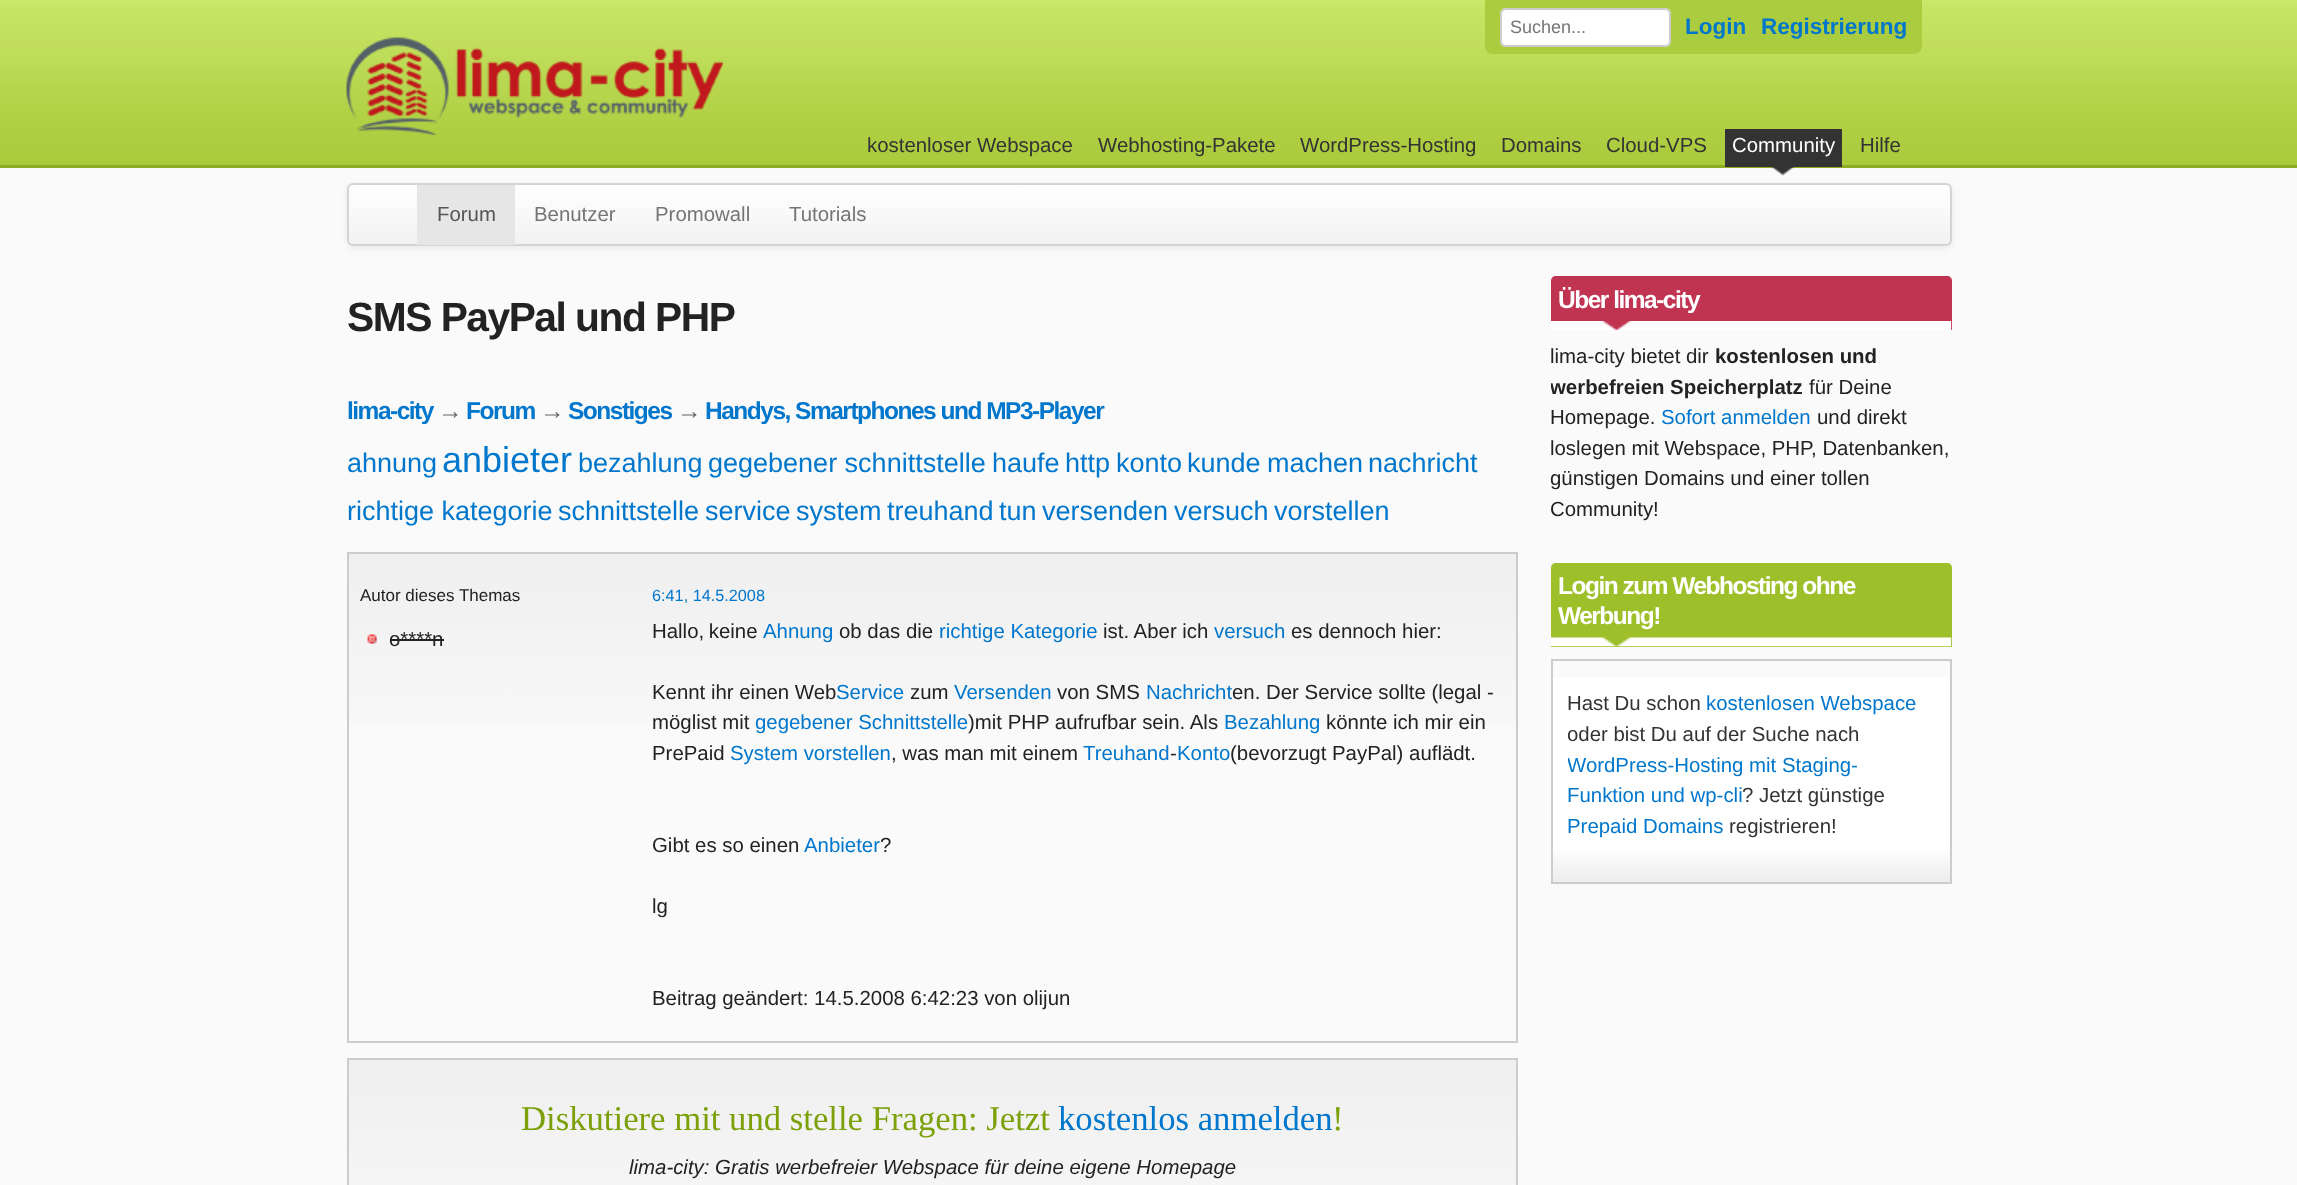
<svg xmlns="http://www.w3.org/2000/svg" width="2297" height="1185" viewBox="0 0 2297 1185">
  <defs>
    <clipPath id="clip1"><rect x="347" y="183" width="1605" height="63" rx="6"/></clipPath>
    <linearGradient id="g1" gradientUnits="userSpaceOnUse" x1="1149" y1="184" x2="1149" y2="245"><stop offset="0" stop-color="#fff"/><stop offset="1" stop-color="#f2f2f2"/></linearGradient>
    <linearGradient id="g2" gradientUnits="userSpaceOnUse" x1="932" y1="553" x2="932" y2="1041"><stop offset="0" stop-color="#efefef"/><stop offset="0.46" stop-color="#fafafa"/></linearGradient>
    <linearGradient id="g3" gradientUnits="userSpaceOnUse" x1="932" y1="1059" x2="932" y2="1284"><stop offset="0" stop-color="#efefef"/><stop offset="1" stop-color="#fafafa"/></linearGradient>
    <clipPath id="clip2"><path d="M1551 276h401v659H1551z"/></clipPath>
    <clipPath id="clip3"><path d="M1568 686h367v162H1568z"/></clipPath>
  </defs>
  <rect width="100%" height="100%" fill="#cbe86b"/>
  <image x="0" y="4" width="2297" height="161" href="img/1.png"/>
  <path d="M0 165h2297v3H0z" fill="#8dad25"/>
  <path d="M1485 0H1922V46C1922 50.5 1918.5 54 1914 54H1493C1488.5 54 1485 50.5 1485 46Z" fill="#abcc3e"/>
  <rect x="1500" y="8" width="171" height="39" rx="6" fill="#fff"/>
  <path d="M1506 10H1665C1667 10 1670 13 1670 15V14C1670 11 1668 9 1665 9H1507C1504 9 1502 11 1502 14V15C1502 13 1504 10 1506 10Z" fill="#ececec"/>
  <rect x="1501" y="9" width="169" height="37" rx="5" fill="none" stroke="#ccc" stroke-width="2"/>
  <image x="346" y="37" width="377" height="98" href="img/2.png"/>
  <path d="M0 168h2297v1017H0z" fill="#fafafa"/>
  <image x="1771" y="167" width="23" height="9" href="img/3.png"/>
  <path d="M1725 129h117v38H1725z" fill="#333"/>
  <rect x="347" y="185" width="1605" height="63" rx="6" fill="#00000012" filter="blur(3px)"/>
  <g clip-path="url(#clip1)">
    <path d="M347 185h1605v60H347z" fill="url(#g1)"/>
  </g>
  <rect x="348" y="184" width="1603" height="61" rx="5" fill="none" stroke="#d4d4d4" stroke-width="2"/>
  <path d="M417 185h98v60H417z" fill="#e6e6e6"/>
  <path d="M349 554h1167v172H349z" fill="url(#g2)"/>
  <path d="M348 553h1169v489H348z" fill="none" stroke="#ccc" stroke-width="2"/>
  <image x="367" y="634" width="10" height="10" href="img/4.png"/>
  <path d="M390 639h54v2H390z" fill="#222"/>
  <path d="M349 1060h1167v125H349z" fill="url(#g3)"/>
  <path d="M348 1059h1169v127H348z" fill="none" stroke="#ccc" stroke-width="2"/>
  <path d="M1556 276H1947C1950 276 1952 278 1952 281V330H1551V281C1551 278 1553 276 1556 276Z" fill="#c03452"/>
  <image x="1551" y="321" width="401" height="9" href="img/5.png"/>
  <path d="M1556 563H1947C1950 563 1952 565 1952 568V647H1551V568C1551 565 1553 563 1556 563Z" fill="#9dc02a"/>
  <image x="1551" y="637" width="401" height="10" href="img/6.png"/>
  <image x="1553" y="677" width="397" height="205" href="img/7.png"/>
  <path d="M1552 660h399v223H1552z" fill="none" stroke="#ccc" stroke-width="2"/>
  <text x="1510" y="33" font-family="Liberation Sans" font-size="18" fill="#757575">Suchen...</text>
  <g font-family="Liberation Sans" font-size="22.5" font-weight="bold" fill="#07c">
    <text x="1685" y="34">Login</text>
    <text x="1761" y="34">Registrierung</text>
  </g>
  <g font-family="Liberation Sans" font-size="20.4" fill="#333">
    <text x="867" y="152">kostenloser Webspace</text>
    <text x="1098" y="152">Webhosting-Pakete</text>
    <text x="1300" y="152">WordPress-Hosting</text>
    <text x="1501" y="152">Domains</text>
    <text x="1606" y="152">Cloud-VPS</text>
  </g>
  <text x="1732" y="152" font-family="Liberation Sans" font-size="20.4" fill="#fff">Community</text>
  <text x="1860" y="152" font-family="Liberation Sans" font-size="20.4" fill="#333">Hilfe</text>
  <text x="437" y="221" font-family="Liberation Sans" font-size="20.4" fill="#555">Forum</text>
  <g font-family="Liberation Sans" font-size="20.4" fill="#757575">
    <text x="534" y="221">Benutzer</text>
    <text x="655" y="221">Promowall</text>
    <text x="789" y="221">Tutorials</text>
  </g>
  <text x="347" y="331" font-family="Liberation Sans" font-size="40.75" font-weight="bold" letter-spacing="-1.5" fill="#222">SMS PayPal und PHP</text>
  <text x="347" y="419" font-family="Liberation Sans" font-size="24.5" font-weight="bold" letter-spacing="-1.5" fill="#07c">lima-city</text>
  <text x="438" y="419" font-family="Liberation Sans" font-size="24.5" font-weight="bold" letter-spacing="-1.5" fill="#666">→</text>
  <text x="466" y="419" font-family="Liberation Sans" font-size="24.5" font-weight="bold" letter-spacing="-1.5" fill="#07c">Forum</text>
  <text x="540" y="419" font-family="Liberation Sans" font-size="24.5" font-weight="bold" letter-spacing="-1.5" fill="#666">→</text>
  <text x="568" y="419" font-family="Liberation Sans" font-size="24.5" font-weight="bold" letter-spacing="-1.5" fill="#07c">Sonstiges</text>
  <text x="677" y="419" font-family="Liberation Sans" font-size="24.5" font-weight="bold" letter-spacing="-1.5" fill="#666">→</text>
  <text x="705" y="419" font-family="Liberation Sans" font-size="24.5" font-weight="bold" letter-spacing="-1.5" fill="#07c">Handys, Smartphones und MP3-Player</text>
  <text x="347" y="472" font-family="Liberation Sans" font-size="27" fill="#07c">ahnung</text>
  <text x="442" y="472" font-family="Liberation Sans" font-size="36" fill="#07c">anbieter</text>
  <g font-family="Liberation Sans" font-size="27" fill="#07c">
    <text x="578" y="472">bezahlung</text>
    <text x="708" y="472">gegebener schnittstelle</text>
    <text x="992" y="472">haufe</text>
    <text x="1065" y="472">http</text>
    <text x="1116" y="472">konto</text>
    <text x="1187" y="472">kunde</text>
    <text x="1267" y="472">machen</text>
    <text x="1368" y="472">nachricht</text>
    <text x="347" y="520">richtige kategorie</text>
    <text x="558" y="520">schnittstelle</text>
    <text x="705" y="520">service</text>
    <text x="796" y="520">system</text>
    <text x="887" y="520">treuhand</text>
    <text x="999" y="520">tun</text>
    <text x="1042" y="520">versenden</text>
    <text x="1174" y="520">versuch</text>
    <text x="1274" y="520">vorstellen</text>
  </g>
  <text x="360" y="601" font-family="Liberation Sans" font-size="17" fill="#222">Autor dieses Themas</text>
  <text x="389" y="646" font-family="Liberation Sans" font-size="20.4" fill="#222">o****n</text>
  <text x="652" y="601" font-family="Liberation Sans" font-size="16.25" fill="#07c">6:41, 14.5.2008</text>
  <text x="652" y="638" word-spacing="-1" font-family="Liberation Sans" font-size="20.4" fill="#222">Hallo, keine</text>
  <text x="763" y="638" font-family="Liberation Sans" font-size="20.4" fill="#07c">Ahnung</text>
  <text x="839" y="638" font-family="Liberation Sans" font-size="20.4" fill="#222">ob das die</text>
  <text x="939" y="638" font-family="Liberation Sans" font-size="20.4" fill="#07c">richtige Kategorie</text>
  <text x="1103" y="638" font-family="Liberation Sans" font-size="20.4" fill="#222">ist. Aber ich</text>
  <text x="1214" y="638" font-family="Liberation Sans" font-size="20.4" fill="#07c">versuch</text>
  <g font-family="Liberation Sans" font-size="20.4" fill="#222">
    <text x="1291" y="638">es dennoch hier:</text>
    <text x="652" y="699">Kennt ihr einen Web</text>
  </g>
  <text x="836" y="699" font-family="Liberation Sans" font-size="20.4" fill="#07c">Service</text>
  <text x="910" y="699" font-family="Liberation Sans" font-size="20.4" fill="#222">zum</text>
  <text x="954" y="699" font-family="Liberation Sans" font-size="20.4" fill="#07c">Versenden</text>
  <text x="1057" y="699" font-family="Liberation Sans" font-size="20.4" fill="#222">von SMS</text>
  <text x="1146" y="699" font-family="Liberation Sans" font-size="20.4" fill="#07c">Nachricht</text>
  <g font-family="Liberation Sans" font-size="20.4" fill="#222">
    <text x="1232" y="699">en. Der Service sollte (legal -</text>
    <text x="652" y="729">möglist mit</text>
  </g>
  <text x="755" y="729" font-family="Liberation Sans" font-size="20.4" fill="#07c">gegebener Schnittstelle</text>
  <text x="968" y="729" font-family="Liberation Sans" font-size="20.4" fill="#222">)mit PHP aufrufbar sein. Als</text>
  <text x="1224" y="729" font-family="Liberation Sans" font-size="20.4" fill="#07c">Bezahlung</text>
  <g font-family="Liberation Sans" font-size="20.4" fill="#222">
    <text x="1326" y="729">könnte ich mir ein</text>
    <text x="652" y="760">PrePaid</text>
  </g>
  <text x="730" y="760" font-family="Liberation Sans" font-size="20.4" fill="#07c">System vorstellen</text>
  <text x="891" y="760" font-family="Liberation Sans" font-size="20.4" fill="#222">, was man mit einem</text>
  <text x="1083" y="760" font-family="Liberation Sans" font-size="20.4" fill="#07c">Treuhand</text>
  <text x="1170" y="760" font-family="Liberation Sans" font-size="20.4" fill="#222">-</text>
  <text x="1177" y="760" font-family="Liberation Sans" font-size="20.4" fill="#07c">Konto</text>
  <g font-family="Liberation Sans" font-size="20.4" fill="#222">
    <text x="1230" y="760">(bevorzugt PayPal) auflädt.</text>
    <text x="652" y="852">Gibt es so einen</text>
  </g>
  <text x="804" y="852" font-family="Liberation Sans" font-size="20.4" fill="#07c">Anbieter</text>
  <g font-family="Liberation Sans" font-size="20.4" fill="#222">
    <text x="880" y="852">?</text>
    <text x="652" y="913">lg</text>
    <text x="652" y="1005">Beitrag geändert: 14.5.2008 6:42:23 von olijun</text>
  </g>
  <text x="521" y="1130" font-family="Liberation Serif" font-size="34.7" fill="#7ba008">Diskutiere mit und stelle Fragen: Jetzt</text>
  <text x="1058" y="1130" font-family="Liberation Serif" font-size="34.7" fill="#07c">kostenlos anmelden</text>
  <text x="1332" y="1130" font-family="Liberation Serif" font-size="34.7" fill="#7ba008">!</text>
  <text x="629" y="1174" font-family="Liberation Sans" font-size="20.4" font-style="italic" fill="#222">lima-city: Gratis werbefreier Webspace für deine eigene Homepage</text>
  <text x="1558" y="308" font-family="Liberation Sans" font-size="24.5" font-weight="bold" letter-spacing="-1.5" fill="#fff">Über lima-city</text>
  <text x="1550" y="363" font-family="Liberation Sans" font-size="20.4" fill="#222">lima-city bietet dir</text>
  <text x="1715" y="363" font-family="Liberation Sans" font-size="20.4" font-weight="bold" fill="#222">kostenlosen und</text>
  <g clip-path="url(#clip2)">
    <text x="1550" y="394" font-family="Liberation Sans" font-size="20.4" font-weight="bold" fill="#222">werbefreien Speicherplatz</text>
  </g>
  <g font-family="Liberation Sans" font-size="20.4" fill="#222">
    <text x="1809" y="394">für Deine</text>
    <text x="1550" y="424">Homepage.</text>
  </g>
  <text x="1661" y="424" font-family="Liberation Sans" font-size="20.4" fill="#07c">Sofort anmelden</text>
  <g font-family="Liberation Sans" font-size="20.4" fill="#222">
    <text x="1817" y="424">und direkt</text>
    <text x="1550" y="455">loslegen mit Webspace, PHP, Datenbanken,</text>
    <text x="1550" y="485">günstigen Domains und einer tollen</text>
    <text x="1550" y="516">Community!</text>
  </g>
  <g font-family="Liberation Sans" font-size="24.5" font-weight="bold" letter-spacing="-1.5" fill="#fff">
    <text x="1558" y="594">Login zum Webhosting ohne</text>
    <text x="1558" y="624">Werbung!</text>
  </g>
  <text x="1567" y="710" font-family="Liberation Sans" font-size="20.4" fill="#333">Hast Du schon</text>
  <text x="1706" y="710" font-family="Liberation Sans" font-size="20.4" fill="#07c">kostenlosen Webspace</text>
  <g clip-path="url(#clip3)">
    <text x="1567" y="741" font-family="Liberation Sans" font-size="20.4" fill="#333">oder bist Du auf der Suche nach</text>
    <text x="1567" y="772" font-family="Liberation Sans" font-size="20.4" fill="#07c">WordPress-Hosting mit Staging-</text>
  </g>
  <text x="1567" y="802" font-family="Liberation Sans" font-size="20.4" fill="#07c">Funktion und wp-cli</text>
  <text x="1742" y="802" font-family="Liberation Sans" font-size="20.4" fill="#333">? Jetzt günstige</text>
  <text x="1567" y="833" font-family="Liberation Sans" font-size="20.4" fill="#07c">Prepaid Domains</text>
  <text x="1729" y="833" font-family="Liberation Sans" font-size="20.4" fill="#333">registrieren!</text>
</svg>
